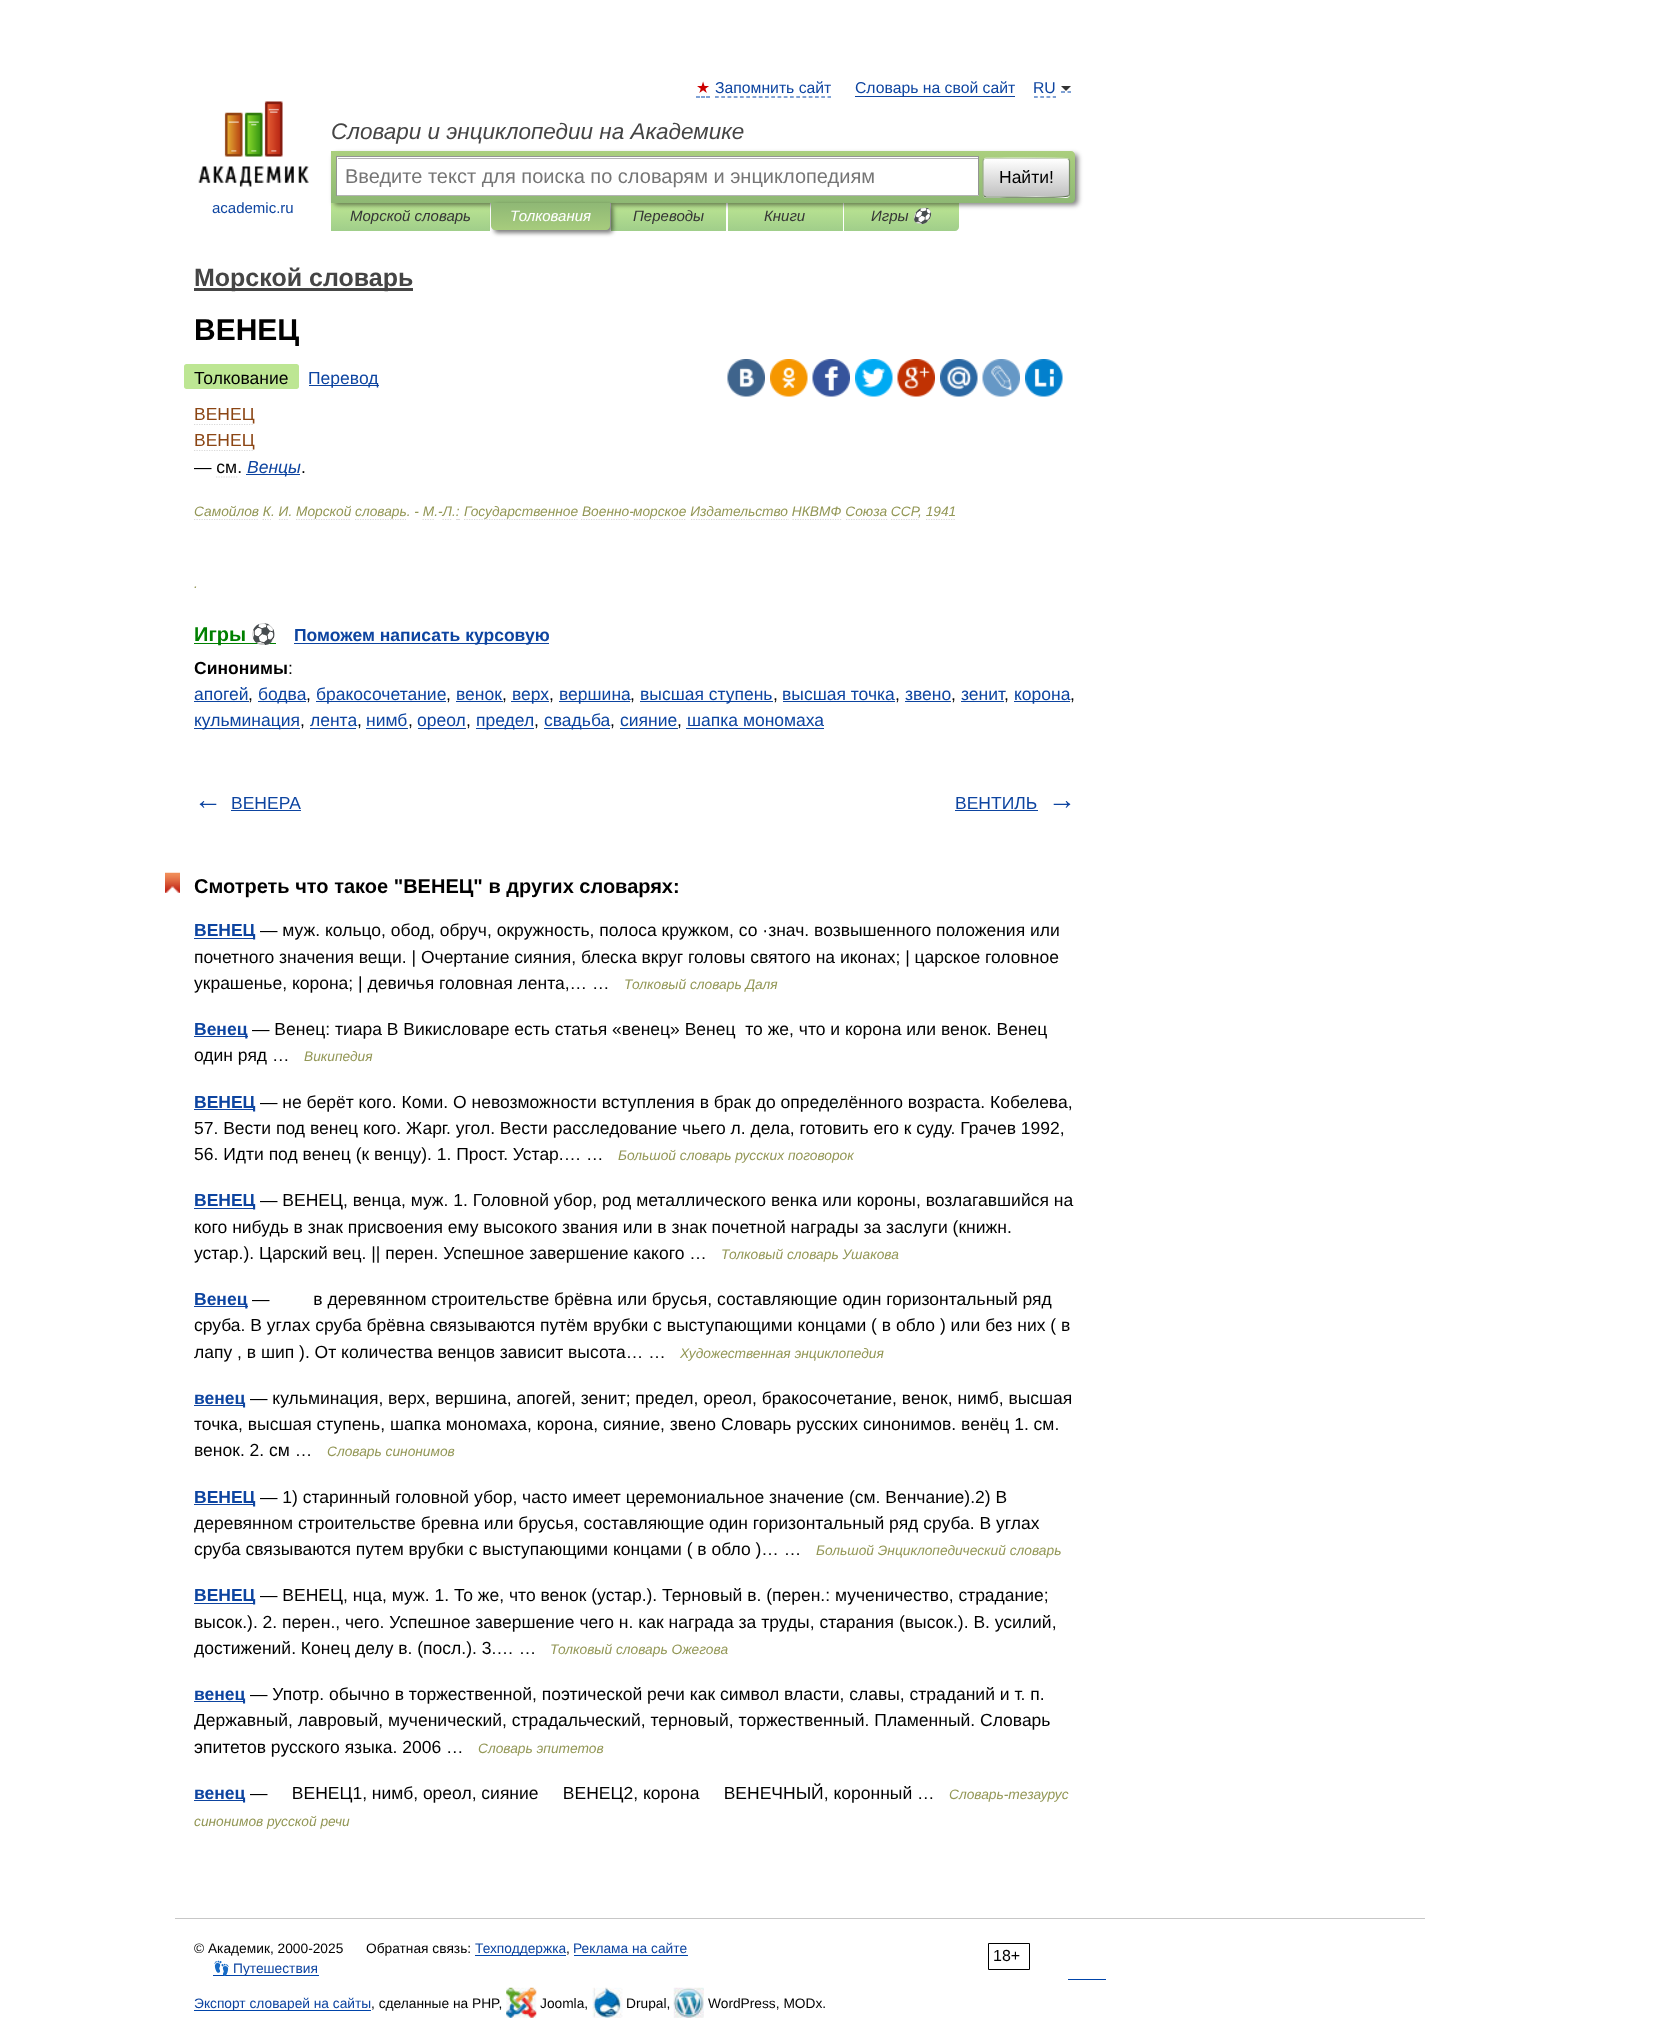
<svg xmlns="http://www.w3.org/2000/svg" width="1662" height="2023" viewBox="0 0 1662 2023">
  <defs>
    <linearGradient id="g1" gradientUnits="userSpaceOnUse" x1="411" y1="203" x2="411" y2="231"><stop offset="0" stop-color="#bde693"/><stop offset="1" stop-color="#a0ce8a"/></linearGradient>
    <linearGradient id="g2" gradientUnits="userSpaceOnUse" x1="669" y1="203" x2="669" y2="231"><stop offset="0" stop-color="#bde693"/><stop offset="1" stop-color="#a0ce8a"/></linearGradient>
    <linearGradient id="g3" gradientUnits="userSpaceOnUse" x1="785" y1="203" x2="785" y2="231"><stop offset="0" stop-color="#bde693"/><stop offset="1" stop-color="#a0ce8a"/></linearGradient>
    <linearGradient id="g4" gradientUnits="userSpaceOnUse" x1="901" y1="203" x2="901" y2="231"><stop offset="0" stop-color="#bde693"/><stop offset="1" stop-color="#a0ce8a"/></linearGradient>
    <linearGradient id="g5" gradientUnits="userSpaceOnUse" x1="703" y1="151" x2="703" y2="203"><stop offset="0" stop-color="#abcf7e"/><stop offset="1" stop-color="#8eb874"/></linearGradient>
    <clipPath id="clip1"><rect x="983" y="158" width="87" height="40" rx="4"/></clipPath>
    <linearGradient id="g6" gradientUnits="userSpaceOnUse" x1="1026" y1="121" x2="1026" y2="159"><stop offset="0" stop-color="#fff"/><stop offset="1" stop-color="#c1c1c1"/></linearGradient>
    <linearGradient id="g7" gradientUnits="userSpaceOnUse" x1="1026" y1="159" x2="1026" y2="196"><stop offset="0" stop-color="#fff"/><stop offset="1" stop-color="#c1c1c1"/></linearGradient>
    <linearGradient id="g8" gradientUnits="userSpaceOnUse" x1="1026" y1="196" x2="1026" y2="234"><stop offset="0" stop-color="#fff"/><stop offset="1" stop-color="#c1c1c1"/></linearGradient>
    <linearGradient id="g9" gradientUnits="userSpaceOnUse" x1="551" y1="203" x2="551" y2="230"><stop offset="0" stop-color="#8fb875"/><stop offset="1" stop-color="#a7cc7d"/></linearGradient>
  </defs>
  <rect width="100%" height="100%" fill="#fff"/>
  <path d="M696 97H700M701 97H705M706 97H710" fill="none" stroke="#04a" stroke-width="1.2"/>
  <path d="M715 97H831" fill="none" stroke="#04a" stroke-width="1.2" stroke-dasharray="3.75 2.5"/>
  <path d="M855 96h160v1H855z" fill="#0d44a0"/>
  <path d="M1034 97H1056" fill="none" stroke="#04a" stroke-width="1.2" stroke-dasharray="3.75 2.5"/>
  <path d="M1061 92H1065M1067.5 92H1071" fill="none" stroke="#04a" stroke-width="1.2"/>
  <path d="M1061 86H1071L1066 91Z" fill="#333"/>
  <path d="M331 203h159v28H331z" fill="url(#g1)"/>
  <path d="M611 203h115v28H611z" fill="url(#g2)"/>
  <path d="M728 203h115v28H728z" fill="url(#g3)"/>
  <path d="M844 203H959V227C959 229 957 231 955 231H844Z" fill="url(#g4)"/>
  <rect x="334" y="154" width="744" height="51" rx="4" fill="#00000080" filter="blur(2.5px)"/>
  <path d="M331 151H1071C1073 151 1075 153 1075 155V199C1075 201 1073 203 1071 203H331Z" fill="url(#g5)"/>
  <path d="M337 157h641v38H337z" fill="#fff"/>
  <path d="M338 158h640v1H338z" fill="#b3b3b3"/>
  <path d="M336 156h643v1H336z" fill="#949494"/>
  <path d="M978 156h1v40H978z" fill="#949494"/>
  <path d="M336 195h643v1H336z" fill="#b4b4b4"/>
  <path d="M336 156h1v40H336z" fill="#949494"/>
  <g clip-path="url(#clip1)">
    <path d="M983 158h87v1H983z" fill="url(#g6)"/>
    <path d="M983 159h87v37H983z" fill="url(#g7)"/>
    <path d="M983 196h87v2H983z" fill="url(#g8)"/>
  </g>
  <path d="M984 159L986 158H999.5C1007 158 1066 157 1068 159H1068.5" fill="none" stroke="#d1e4bc" stroke-width="1.2"/>
  <path d="M1068.5 159C1069 159.5 1069.5 160.5 1069.5 161V194C1069.5 194.5 1069 195.5 1068.5 196" fill="none" stroke="#7a8e69" stroke-width="1.2"/>
  <path d="M1068.5 196H1068C1066 198 1007 197 999.5 197H986L984 196" fill="none" stroke="#5d7250" stroke-width="1.2"/>
  <path d="M984 196C983.5 195.5 983 194.5 983 194V161C983 160.5 983.5 159.5 984 159" fill="none" stroke="#9aae89" stroke-width="1.2"/>
  <image x="198" y="101" width="111" height="86" href="img/1.png"/>
  <rect x="494" y="205" width="119" height="28" rx="4" fill="#00000080" filter="blur(2px)"/>
  <path d="M491 203H610V226C610 228 608 230 606 230H495C493 230 491 228 491 226Z" fill="url(#g9)"/>
  <path d="M194 288h219v3H194z" fill="#454545"/>
  <path d="M186.5 364H194V389H186.5C185 389 184 388 184 386.5V366.5C184 365 185 364 186.5 364Z" fill="#bde693"/>
  <path d="M194 364H296.5C298 364 299 365 299 366.5V386.5C299 388 298 389 296.5 389H194Z" fill="#bde693"/>
  <path d="M309 385h70v1H309z" fill="#0d44a0"/>
  <image x="727" y="359" width="38" height="38" href="img/2.png"/>
  <image x="770" y="359" width="38" height="38" href="img/3.png"/>
  <image x="812" y="359" width="38" height="38" href="img/4.png"/>
  <image x="855" y="359" width="38" height="38" href="img/5.png"/>
  <image x="897" y="359" width="38" height="38" href="img/6.png"/>
  <image x="940" y="359" width="38" height="38" href="img/7.png"/>
  <image x="982" y="359" width="38" height="38" href="img/8.png"/>
  <image x="1025" y="359" width="38" height="38" href="img/9.png"/>
  <path d="M194 424.5H254" fill="none" stroke="#d9d9d9" stroke-width="1.2" stroke-dasharray="1.25 1.25"/>
  <path d="M194 450.5H254" fill="none" stroke="#d9d9d9" stroke-width="1.2" stroke-dasharray="1.25 1.25"/>
  <path d="M246 474h54v1H246z" fill="#0d44a0"/>
  <path d="M216 477H237.5" fill="none" stroke="#d9d9d9" stroke-width="1.2" stroke-dasharray="1.25 1.25"/>
  <path d="M194 519.5H259" fill="none" stroke="#d9d9d9" stroke-width="1.2" stroke-dasharray="1.25 1.25"/>
  <path d="M262.5 519.5H264M265 519.5H266M267.5 519.5H268.5M270 519.5H271" fill="none" stroke="#d9d9d9" stroke-width="1.2"/>
  <path d="M279 519.5H289" fill="none" stroke="#d9d9d9" stroke-width="1.2" stroke-dasharray="1.25 1.25"/>
  <path d="M296 519.5H351" fill="none" stroke="#d9d9d9" stroke-width="1.2" stroke-dasharray="1.25 1.25"/>
  <path d="M355 519.5H406" fill="none" stroke="#d9d9d9" stroke-width="1.2" stroke-dasharray="1.25 1.25"/>
  <path d="M456 519h4v1H456z" fill="#d9d9d9"/>
  <path d="M464 519.5H577.5" fill="none" stroke="#d9d9d9" stroke-width="1.2" stroke-dasharray="1.25 1.25"/>
  <path d="M634 519.5H686" fill="none" stroke="#d9d9d9" stroke-width="1.2" stroke-dasharray="1.25 1.25"/>
  <path d="M926 519.5H956" fill="none" stroke="#d9d9d9" stroke-width="1.2" stroke-dasharray="1.25 1.25"/>
  <path d="M194 643h82v1H194z" fill="#008000"/>
  <path d="M294 643h255v1H294z" fill="#0d44a0"/>
  <path d="M194 701h55v1H194z" fill="#0d44a0"/>
  <path d="M258 701h48v1H258z" fill="#0d44a0"/>
  <path d="M316 701h130v1H316z" fill="#0d44a0"/>
  <path d="M456 701h47v1H456z" fill="#0d44a0"/>
  <path d="M511 701h38v1H511z" fill="#0d44a0"/>
  <path d="M559 701h71v1H559z" fill="#0d44a0"/>
  <path d="M640 701h133v1H640z" fill="#0d44a0"/>
  <path d="M783 701h112v1H783z" fill="#0d44a0"/>
  <path d="M905 701h46v1H905z" fill="#0d44a0"/>
  <path d="M961 701h43v1H961z" fill="#0d44a0"/>
  <path d="M1014 701h56v1H1014z" fill="#0d44a0"/>
  <path d="M194 728h106v1H194z" fill="#0d44a0"/>
  <path d="M310 728h46v1H310z" fill="#0d44a0"/>
  <path d="M366 728h42v1H366z" fill="#0d44a0"/>
  <path d="M418 728h48v1H418z" fill="#0d44a0"/>
  <path d="M476 728h58v1H476z" fill="#0d44a0"/>
  <path d="M544 728h66v1H544z" fill="#0d44a0"/>
  <path d="M620 728h58v1H620z" fill="#0d44a0"/>
  <path d="M686 728h138v1H686z" fill="#0d44a0"/>
  <path d="M231 810h70v1H231z" fill="#0d44a0"/>
  <path d="M955 810h83v1H955z" fill="#0d44a0"/>
  <image x="165" y="872" width="15" height="21" href="img/10.png"/>
  <path d="M194 938h61v1H194z" fill="#0d44a0"/>
  <path d="M194 1036h54v1H194z" fill="#0d44a0"/>
  <path d="M194 1109h61v1H194z" fill="#0d44a0"/>
  <path d="M194 1208h61v1H194z" fill="#0d44a0"/>
  <path d="M194 1306h54v1H194z" fill="#0d44a0"/>
  <path d="M194 1405h51v1H194z" fill="#0d44a0"/>
  <path d="M194 1504h61v1H194z" fill="#0d44a0"/>
  <path d="M194 1603h61v1H194z" fill="#0d44a0"/>
  <path d="M194 1701h51v1H194z" fill="#0d44a0"/>
  <path d="M194 1800h51v1H194z" fill="#0d44a0"/>
  <path d="M175 1918h1250v1H175z" fill="#c7c7c7"/>
  <path d="M475 1955h91v1H475z" fill="#04a"/>
  <path d="M574 1955h114v1H574z" fill="#04a"/>
  <path d="M988.5 1943.5h41v26H988.5z" fill="none" stroke="#000"/>
  <path d="M213 1975h106v1H213z" fill="#04a"/>
  <path d="M1068 1979h38v1H1068z" fill="#04a"/>
  <path d="M194 2010h177v1H194z" fill="#04a"/>
  <image x="506" y="1987" width="31" height="31" href="img/11.png"/>
  <image x="592" y="1987" width="31" height="31" href="img/12.png"/>
  <image x="673" y="1987" width="31" height="31" href="img/13.png"/>
  <text x="696" y="93" font-family="DejaVu Sans" font-size="15.75" fill="#c00">★</text>
  <g font-family="Liberation Sans" font-size="15.75" fill="#0d44a0">
    <text x="715" y="93">Запомнить сайт</text>
    <text x="855" y="93">Словарь на свой сайт</text>
    <text x="1033" y="93">RU</text>
  </g>
  <text x="331" y="139" font-family="Liberation Sans" font-size="22.5" font-style="italic" fill="#454545">Словари и энциклопедии на Академике</text>
  <text x="345" y="183" font-family="Liberation Sans" font-size="20" fill="#757575">Введите текст для поиска по словарям и энциклопедиям</text>
  <text x="999" y="183" font-family="Liberation Sans" font-size="17.5" fill="#000">Найти!</text>
  <text x="212" y="213" font-family="Liberation Sans" font-size="15" fill="#0d44a0">academic.ru</text>
  <text x="350" y="221" font-family="Liberation Sans" font-size="15" font-style="italic" fill="#353535">Морской словарь</text>
  <text x="510" y="221" font-family="Liberation Sans" font-size="15" font-style="italic" fill="#fff">Толкования</text>
  <g font-family="Liberation Sans" font-size="15" font-style="italic" fill="#353535">
    <text x="633" y="221">Переводы</text>
    <text x="764" y="221">Книги</text>
    <text x="871" y="221">Игры</text>
  </g>
  <text x="912" y="221" font-family="Noto Color Emoji" font-size="15" font-style="italic" fill="#353535">⚽</text>
  <text x="194" y="286" font-family="Liberation Sans" font-size="25" font-weight="bold" fill="#454545">Морской словарь</text>
  <text x="194" y="340" font-family="Liberation Sans" font-size="30" font-weight="bold" fill="#000">ВЕНЕЦ</text>
  <text x="194" y="384" font-family="Liberation Sans" font-size="17.5" fill="#000">Толкование</text>
  <text x="308" y="384" font-family="Liberation Sans" font-size="17.5" fill="#0d44a0">Перевод</text>
  <g font-family="Liberation Sans" font-size="17.5" fill="#8b4513">
    <text x="194" y="420">ВЕНЕЦ</text>
    <text x="194" y="446">ВЕНЕЦ</text>
  </g>
  <text x="194" y="473" font-family="Liberation Sans" font-size="17.5" fill="#000">— см.</text>
  <text x="247" y="473" font-family="Liberation Sans" font-size="17.5" font-style="italic" fill="#0d44a0">Венцы</text>
  <text x="301" y="473" font-family="Liberation Sans" font-size="17.5" fill="#000">.</text>
  <g font-family="Liberation Sans" font-size="13.75" font-style="italic" fill="#939756">
    <text x="194" y="516">Самойлов К. И.</text>
    <text x="296" y="516">Морской</text>
    <text x="355" y="516">словарь. - М.-Л.:</text>
  </g>
  <path d="M422.5 519.5H434M442.5 519.5H452.5" fill="none" stroke="#d9d9d9" stroke-width="1.2" stroke-dasharray="1.25 1.25"/>
  <text x="464" y="516" font-family="Liberation Sans" font-size="13.75" font-style="italic" fill="#939756">Государственное Военно-</text>
  <path d="M581 519.5H629" fill="none" stroke="#d9d9d9" stroke-width="1.2" stroke-dasharray="1.25 1.25"/>
  <text x="633" y="516" font-family="Liberation Sans" font-size="13.75" font-style="italic" fill="#939756">морское Издательство НКВМФ Союза ССР</text>
  <path d="M691 519.5H789" fill="none" stroke="#d9d9d9" stroke-width="1.2" stroke-dasharray="1.25 1.25"/>
  <path d="M792.5 519.5H842.5" fill="none" stroke="#d9d9d9" stroke-width="1.2" stroke-dasharray="1.25 1.25"/>
  <path d="M846 519.5H887.5" fill="none" stroke="#d9d9d9" stroke-width="1.2" stroke-dasharray="1.25 1.25"/>
  <path d="M891 519.5H919" fill="none" stroke="#d9d9d9" stroke-width="1.2" stroke-dasharray="1.25 1.25"/>
  <g font-family="Liberation Sans" font-size="13.75" font-style="italic" fill="#939756">
    <text x="918" y="516">, 1941</text>
    <text x="194" y="588">.</text>
  </g>
  <text x="194" y="641" font-family="Liberation Sans" font-size="20" font-weight="bold" fill="#008000">Игры</text>
  <text x="251" y="641" font-family="Noto Color Emoji" font-size="20" font-weight="bold" fill="#008000">⚽</text>
  <text x="294" y="641" font-family="Liberation Sans" font-size="17.5" font-weight="bold" fill="#0d44a0">Поможем написать курсовую</text>
  <text x="194" y="674" font-family="Liberation Sans" font-size="17.5" font-weight="bold" fill="#000">Синонимы</text>
  <text x="288" y="674" font-family="Liberation Sans" font-size="17.5" fill="#000">:</text>
  <text x="194" y="700" font-family="Liberation Sans" font-size="17.5" fill="#0d44a0">апогей</text>
  <text x="248" y="700" font-family="Liberation Sans" font-size="17.5" fill="#000">,</text>
  <text x="258" y="700" font-family="Liberation Sans" font-size="17.5" fill="#0d44a0">бодва</text>
  <text x="306" y="700" font-family="Liberation Sans" font-size="17.5" fill="#000">,</text>
  <text x="316" y="700" font-family="Liberation Sans" font-size="17.5" fill="#0d44a0">бракосочетание</text>
  <text x="446" y="700" font-family="Liberation Sans" font-size="17.5" fill="#000">,</text>
  <text x="456" y="700" font-family="Liberation Sans" font-size="17.5" fill="#0d44a0">венок</text>
  <text x="502" y="700" font-family="Liberation Sans" font-size="17.5" fill="#000">,</text>
  <text x="512" y="700" font-family="Liberation Sans" font-size="17.5" fill="#0d44a0">верх</text>
  <text x="549" y="700" font-family="Liberation Sans" font-size="17.5" fill="#000">,</text>
  <text x="559" y="700" font-family="Liberation Sans" font-size="17.5" fill="#0d44a0">вершина</text>
  <text x="630" y="700" font-family="Liberation Sans" font-size="17.5" fill="#000">,</text>
  <text x="640" y="700" font-family="Liberation Sans" font-size="17.5" fill="#0d44a0">высшая ступень</text>
  <text x="773" y="700" font-family="Liberation Sans" font-size="17.5" fill="#000">,</text>
  <text x="782" y="700" font-family="Liberation Sans" font-size="17.5" fill="#0d44a0">высшая точка</text>
  <text x="895" y="700" font-family="Liberation Sans" font-size="17.5" fill="#000">,</text>
  <text x="905" y="700" font-family="Liberation Sans" font-size="17.5" fill="#0d44a0">звено</text>
  <text x="951" y="700" font-family="Liberation Sans" font-size="17.5" fill="#000">,</text>
  <text x="961" y="700" font-family="Liberation Sans" font-size="17.5" fill="#0d44a0">зенит</text>
  <text x="1004" y="700" font-family="Liberation Sans" font-size="17.5" fill="#000">,</text>
  <text x="1014" y="700" font-family="Liberation Sans" font-size="17.5" fill="#0d44a0">корона</text>
  <text x="1070" y="700" font-family="Liberation Sans" font-size="17.5" fill="#000">,</text>
  <text x="194" y="726" font-family="Liberation Sans" font-size="17.5" fill="#0d44a0">кульминация</text>
  <text x="300" y="726" font-family="Liberation Sans" font-size="17.5" fill="#000">,</text>
  <text x="310" y="726" font-family="Liberation Sans" font-size="17.5" fill="#0d44a0">лента</text>
  <text x="357" y="726" font-family="Liberation Sans" font-size="17.5" fill="#000">,</text>
  <text x="366" y="726" font-family="Liberation Sans" font-size="17.5" fill="#0d44a0">нимб</text>
  <text x="408" y="726" font-family="Liberation Sans" font-size="17.5" fill="#000">,</text>
  <text x="417" y="726" font-family="Liberation Sans" font-size="17.5" fill="#0d44a0">ореол</text>
  <text x="466" y="726" font-family="Liberation Sans" font-size="17.5" fill="#000">,</text>
  <text x="476" y="726" font-family="Liberation Sans" font-size="17.5" fill="#0d44a0">предел</text>
  <text x="534" y="726" font-family="Liberation Sans" font-size="17.5" fill="#000">,</text>
  <text x="544" y="726" font-family="Liberation Sans" font-size="17.5" fill="#0d44a0">свадьба</text>
  <text x="610" y="726" font-family="Liberation Sans" font-size="17.5" fill="#000">,</text>
  <text x="620" y="726" font-family="Liberation Sans" font-size="17.5" fill="#0d44a0">сияние</text>
  <text x="677" y="726" font-family="Liberation Sans" font-size="17.5" fill="#000">,</text>
  <text x="687" y="726" font-family="Liberation Sans" font-size="17.5" fill="#0d44a0">шапка мономаха</text>
  <text x="194" y="809" font-family="Liberation Sans" font-size="28" font-weight="bold" fill="#0d44a0">←</text>
  <g font-family="Liberation Sans" font-size="17.5" fill="#0d44a0">
    <text x="231" y="809">ВЕНЕРА</text>
    <text x="955" y="809">ВЕНТИЛЬ</text>
  </g>
  <text x="1048" y="809" font-family="Liberation Sans" font-size="28" font-weight="bold" fill="#0d44a0">→</text>
  <text x="194" y="893" font-family="Liberation Sans" font-size="20" font-weight="bold" fill="#000">Смотреть что такое "ВЕНЕЦ" в других словарях:</text>
  <text x="194" y="936" font-family="Liberation Sans" font-size="17.5" font-weight="bold" fill="#0d44a0">ВЕНЕЦ</text>
  <g font-family="Liberation Sans" font-size="17.5" fill="#000">
    <text x="260" y="936">— муж. кольцо, обод, обруч, окружность, полоса кружком, со ·знач. возвышенного положения или</text>
    <text x="194" y="963">почетного значения вещи. | Очертание сияния, блеска вкруг головы святого на иконах; | царское головное</text>
    <text x="194" y="989">украшенье, корона; | девичья головная лента,… …</text>
  </g>
  <text x="624" y="989" font-family="Liberation Sans" font-size="13.75" font-style="italic" fill="#939756">Толковый словарь Даля</text>
  <text x="194" y="1035" font-family="Liberation Sans" font-size="17.5" font-weight="bold" fill="#0d44a0">Венец</text>
  <g font-family="Liberation Sans" font-size="17.5" fill="#000">
    <text x="252" y="1035" xml:space="preserve">— Венец: тиара В Викисловаре есть статья «венец» Венец  то же, что и корона или венок. Венец</text>
    <text x="194" y="1061">один ряд …</text>
  </g>
  <text x="304" y="1061" font-family="Liberation Sans" font-size="13.75" font-style="italic" fill="#939756">Википедия</text>
  <text x="194" y="1108" font-family="Liberation Sans" font-size="17.5" font-weight="bold" fill="#0d44a0">ВЕНЕЦ</text>
  <g font-family="Liberation Sans" font-size="17.5" fill="#000">
    <text x="260" y="1108">— не берёт кого. Коми. О невозможности вступления в брак до определённого возраста. Кобелева,</text>
    <text x="194" y="1134">57. Вести под венец кого. Жарг. угол. Вести расследование чьего л. дела, готовить его к суду. Грачев 1992,</text>
    <text x="194" y="1160">56. Идти под венец (к венцу). 1. Прост. Устар.… …</text>
  </g>
  <text x="618" y="1160" font-family="Liberation Sans" font-size="13.75" font-style="italic" fill="#939756">Большой словарь русских поговорок</text>
  <text x="194" y="1206" font-family="Liberation Sans" font-size="17.5" font-weight="bold" fill="#0d44a0">ВЕНЕЦ</text>
  <g font-family="Liberation Sans" font-size="17.5" fill="#000">
    <text x="260" y="1206">— ВЕНЕЦ, венца, муж. 1. Головной убор, род металлического венка или короны, возлагавшийся на</text>
    <text x="194" y="1233">кого нибудь в знак присвоения ему высокого звания или в знак почетной награды за заслуги (книжн.</text>
    <text x="194" y="1259">устар.). Царский вец. || перен. Успешное завершение какого …</text>
  </g>
  <text x="721" y="1259" font-family="Liberation Sans" font-size="13.75" font-style="italic" fill="#939756">Толковый словарь Ушакова</text>
  <text x="194" y="1305" font-family="Liberation Sans" font-size="17.5" font-weight="bold" fill="#0d44a0">Венец</text>
  <g font-family="Liberation Sans" font-size="17.5" fill="#000">
    <text x="252" y="1305" xml:space="preserve">—         в деревянном строительстве брёвна или брусья, составляющие один горизонтальный ряд</text>
    <text x="194" y="1331">сруба. В углах сруба брёвна связываются путём врубки с выступающими концами ( в обло ) или без них ( в</text>
    <text x="194" y="1358">лапу , в шип ). От количества венцов зависит высота… …</text>
  </g>
  <text x="680" y="1358" font-family="Liberation Sans" font-size="13.75" font-style="italic" fill="#939756">Художественная энциклопедия</text>
  <text x="194" y="1404" font-family="Liberation Sans" font-size="17.5" font-weight="bold" fill="#0d44a0">венец</text>
  <g font-family="Liberation Sans" font-size="17.5" fill="#000">
    <text x="250" y="1404">— кульминация, верх, вершина, апогей, зенит; предел, ореол, бракосочетание, венок, нимб, высшая</text>
    <text x="194" y="1430">точка, высшая ступень, шапка мономаха, корона, сияние, звено Словарь русских синонимов. венёц 1. см.</text>
    <text x="194" y="1456">венок. 2. см …</text>
  </g>
  <text x="327" y="1456" font-family="Liberation Sans" font-size="13.75" font-style="italic" fill="#939756">Словарь синонимов</text>
  <text x="194" y="1503" font-family="Liberation Sans" font-size="17.5" font-weight="bold" fill="#0d44a0">ВЕНЕЦ</text>
  <g font-family="Liberation Sans" font-size="17.5" fill="#000">
    <text x="260" y="1503">— 1) старинный головной убор, часто имеет церемониальное значение (см. Венчание).2) В</text>
    <text x="194" y="1529">деревянном строительстве бревна или брусья, составляющие один горизонтальный ряд сруба. В углах</text>
    <text x="194" y="1555">сруба связываются путем врубки с выступающими концами ( в обло )… …</text>
  </g>
  <text x="816" y="1555" font-family="Liberation Sans" font-size="13.75" font-style="italic" fill="#939756">Большой Энциклопедический словарь</text>
  <text x="194" y="1601" font-family="Liberation Sans" font-size="17.5" font-weight="bold" fill="#0d44a0">ВЕНЕЦ</text>
  <g font-family="Liberation Sans" font-size="17.5" fill="#000">
    <text x="260" y="1601">— ВЕНЕЦ, нца, муж. 1. То же, что венок (устар.). Терновый в. (перен.: мученичество, страдание;</text>
    <text x="194" y="1628">высок.). 2. перен., чего. Успешное завершение чего н. как награда за труды, старания (высок.). В. усилий,</text>
    <text x="194" y="1654">достижений. Конец делу в. (посл.). 3.… …</text>
  </g>
  <text x="550" y="1654" font-family="Liberation Sans" font-size="13.75" font-style="italic" fill="#939756">Толковый словарь Ожегова</text>
  <text x="194" y="1700" font-family="Liberation Sans" font-size="17.5" font-weight="bold" fill="#0d44a0">венец</text>
  <g font-family="Liberation Sans" font-size="17.5" fill="#000">
    <text x="250" y="1700">— Употр. обычно в торжественной, поэтической речи как символ власти, славы, страданий и т. п.</text>
    <text x="194" y="1726">Державный, лавровый, мученический, страдальческий, терновый, торжественный. Пламенный. Словарь</text>
    <text x="194" y="1753">эпитетов русского языка. 2006 …</text>
  </g>
  <text x="478" y="1753" font-family="Liberation Sans" font-size="13.75" font-style="italic" fill="#939756">Словарь эпитетов</text>
  <text x="194" y="1799" font-family="Liberation Sans" font-size="17.5" font-weight="bold" fill="#0d44a0">венец</text>
  <text x="250" y="1799" font-family="Liberation Sans" font-size="17.5" fill="#000" xml:space="preserve">—     ВЕНЕЦ1, нимб, ореол, сияние     ВЕНЕЦ2, корона     ВЕНЕЧНЫЙ, коронный …</text>
  <g font-family="Liberation Sans" font-size="13.75" font-style="italic" fill="#939756">
    <text x="949" y="1799">Словарь-тезаурус</text>
    <text x="194" y="1826">синонимов русской речи</text>
  </g>
  <g font-family="Liberation Sans" font-size="13.75" fill="#000">
    <text x="194" y="1953">© Академик, 2000-2025</text>
    <text x="366" y="1953">Обратная связь:</text>
  </g>
  <text x="475" y="1953" font-family="Liberation Sans" font-size="13.75" fill="#0d44a0">Техподдержка</text>
  <text x="566" y="1953" font-family="Liberation Sans" font-size="13.75" fill="#000">,</text>
  <text x="573" y="1953" font-family="Liberation Sans" font-size="13.75" fill="#0d44a0">Реклама на сайте</text>
  <text x="993" y="1961" font-family="Liberation Sans" font-size="16" fill="#000">18+</text>
  <text x="213" y="1973" font-family="Noto Color Emoji" font-size="13.75" fill="#0d44a0">👣</text>
  <g font-family="Liberation Sans" font-size="13.75" fill="#0d44a0">
    <text x="233" y="1973">Путешествия</text>
    <text x="194" y="2008">Экспорт словарей на сайты</text>
  </g>
  <g font-family="Liberation Sans" font-size="13.75" fill="#000">
    <text x="371" y="2008">, сделанные на PHP,</text>
    <text x="540" y="2008">Joomla,</text>
    <text x="626" y="2008">Drupal,</text>
    <text x="708" y="2008">WordPress, MODx.</text>
  </g>
</svg>
